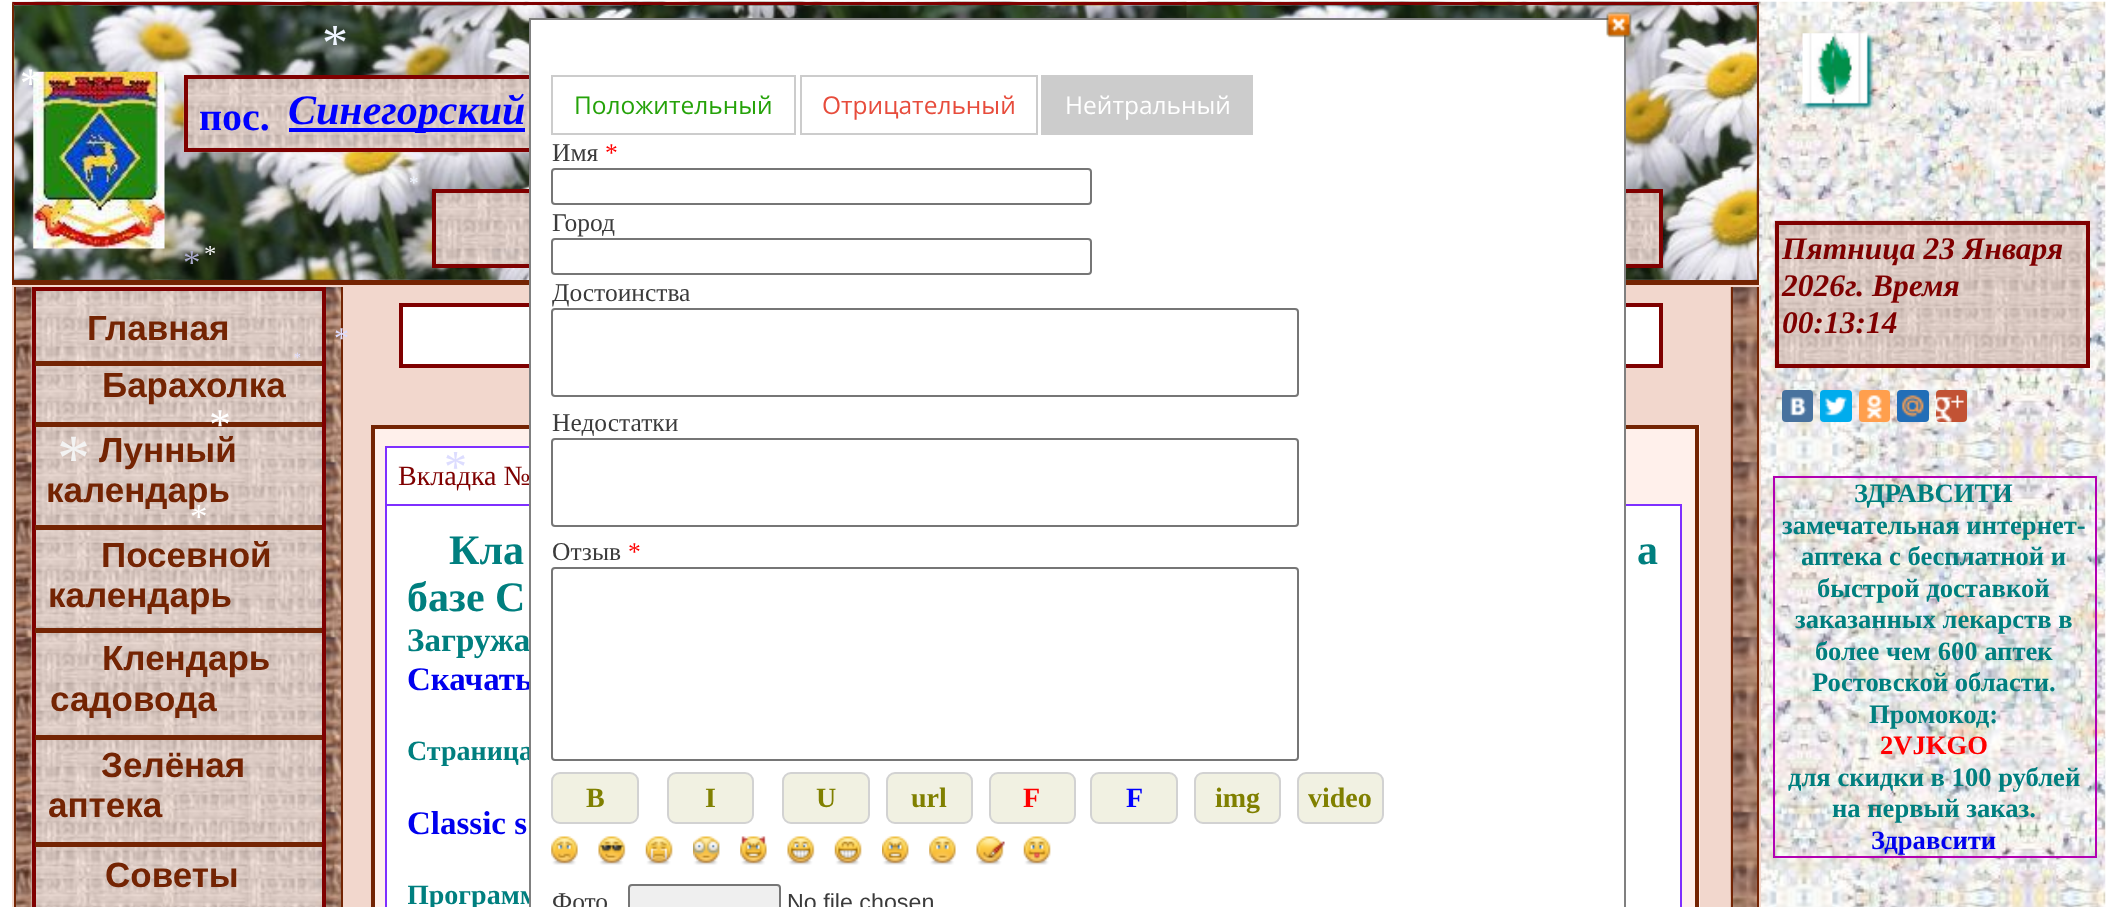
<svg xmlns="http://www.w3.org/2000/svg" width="2115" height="907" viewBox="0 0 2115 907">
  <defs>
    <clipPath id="clip1"><path d="M408 527h1251v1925H408z"/></clipPath>
  </defs>
  <rect width="100%" height="100%" fill="#fff"/>
  <image x="12" y="1" width="2094" height="906" href="img/1.png"/>
  <image x="1802" y="33" width="72" height="77" href="img/2.png"/>
  <image x="1774" y="220" width="316" height="148" href="img/3.png"/>
  <path d="M1777 223h311v143H1777z" fill="none" stroke="#7f0000" stroke-width="4"/>
  <rect x="1782" y="390" width="31" height="32" rx="4" fill="#48729e"/>
  <image x="1790" y="396" width="17" height="20" href="img/4.png"/>
  <rect x="1820" y="390" width="32" height="32" rx="4" fill="#00aced"/>
  <image x="1824" y="396" width="23" height="20" href="img/5.png"/>
  <rect x="1859" y="390" width="31" height="32" rx="4" fill="#ff9f4d"/>
  <image x="1866" y="395" width="16" height="24" href="img/6.png"/>
  <rect x="1897" y="390" width="32" height="32" rx="4" fill="#226eb7"/>
  <image x="1901" y="395" width="23" height="22" href="img/7.png"/>
  <rect x="1936" y="390" width="31" height="32" rx="4" fill="#c25234"/>
  <image x="1935" y="395" width="29" height="27" href="img/8.png"/>
  <path d="M1774 477h322v380H1774z" fill="none" stroke="#b200b2" stroke-width="2"/>
  <image x="12" y="1" width="1747" height="279" href="img/9.png"/>
  <path d="M12 2H1759L1757 5H14Z" fill="#7f0000"/>
  <path d="M1759 2V285L1757 280V5Z" fill="#742403"/>
  <path d="M12 280h1747v5H12z" fill="#742403"/>
  <path d="M12 285V2L14 5V280Z" fill="#742403"/>
  <image x="33" y="71" width="132" height="178" href="img/10.png"/>
  <image x="183" y="75" width="346" height="78" href="img/11.png"/>
  <path d="M186 77h456v73H186z" fill="none" stroke="#7f0000" stroke-width="4"/>
  <path d="M289 128h236v4H289z" fill="#00f"/>
  <image x="436" y="193" width="1223" height="71" href="img/12.png"/>
  <path d="M434 191h1227v75H434z" fill="none" stroke="#7f0000" stroke-width="4"/>
  <path d="M12 285h1749v622H12z" fill="#f2d7cd"/>
  <image x="16" y="287" width="325" height="620" href="img/13.png"/>
  <path d="M341 287h2v620H341z" fill="#742403"/>
  <path d="M14 287h2v620H14z" fill="#742403"/>
  <image x="31" y="287" width="291" height="620" href="img/14.png"/>
  <path d="M34 289h290v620H34z" fill="none" stroke="#7f0000" stroke-width="4"/>
  <path d="M35 361h287v5H35z" fill="#742403"/>
  <path d="M35 422h287v5H35z" fill="#742403"/>
  <path d="M35 525h287v5H35z" fill="#742403"/>
  <path d="M35 628h287v5H35z" fill="#742403"/>
  <path d="M35 735h287v5H35z" fill="#742403"/>
  <path d="M35 842h287v5H35z" fill="#742403"/>
  <path d="M375 425h1325v482H375z" fill="#fff0eb"/>
  <path d="M373 427h1324v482H373z" fill="none" stroke="#742403" stroke-width="4"/>
  <path d="M386 505h1295v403H386z" fill="#fff" stroke="#7f2fff" stroke-width="2"/>
  <path d="M387 448h142v56H387z" fill="#fff"/>
  <path d="M386 447h171v58H386z" fill="none" stroke="#7f2fff" stroke-width="2"/>
  <path d="M401 305h1260v61H401z" fill="#fff" stroke="#7f0000" stroke-width="4"/>
  <image x="1730" y="287" width="27" height="620" href="img/27.png"/>
  <path d="M1757 287h2v620H1757z" fill="#742403"/>
  <path d="M1731 287h2v620H1731z" fill="#742403"/>
  <text x="322" y="60" font-family="Liberation Serif" font-size="52" fill="#eff5ff">*</text>
  <text x="20" y="97" font-family="Liberation Serif" font-size="42" fill="#fff">*</text>
  <text x="409" y="189" font-family="Liberation Serif" font-size="19" fill="#eff5ff">*</text>
  <text x="204" y="262" font-family="Liberation Serif" font-size="24.5" fill="#f3f3f3">*</text>
  <text x="183" y="274" font-family="Liberation Serif" font-size="35" fill="#aac">*</text>
  <text x="334" y="348" font-family="Liberation Serif" font-size="30" fill="#ddf">*</text>
  <text x="294" y="362" font-family="Liberation Serif" font-size="14" fill="#ddf">*</text>
  <text x="209" y="439" font-family="Liberation Serif" font-size="44" fill="#fff">*</text>
  <text x="57" y="480" font-family="Liberation Serif" font-size="66" fill="#f3f3f3">*</text>
  <text x="444" y="482" font-family="Liberation Serif" font-size="46" fill="#ddf">*</text>
  <text x="190" y="528" font-family="Liberation Serif" font-size="35" fill="#fff">*</text>
  <g font-family="Liberation Serif" font-size="31.5" font-weight="bold" font-style="italic" fill="#7f0000">
    <text x="1782" y="259">Пятница 23 Января</text>
    <text x="1782" y="296">2026г. Время</text>
    <text x="1782" y="333">00:13:14</text>
  </g>
  <g font-family="Liberation Serif" font-size="26.6" font-weight="bold" fill="#007f7f">
    <text x="1854" y="502">ЗДРАВСИТИ</text>
    <text x="1782" y="534">замечательная интернет-</text>
    <text x="1801" y="565">аптека с бесплатной и</text>
    <text x="1817" y="597">быстрой доставкой</text>
    <text x="1795" y="628">заказанных лекарств в</text>
    <text x="1815" y="660">более чем 600 аптек</text>
    <text x="1812" y="691">Ростовской области.</text>
    <text x="1869" y="723">Промокод:</text>
  </g>
  <text x="1880" y="754" font-family="Liberation Serif" font-size="26.6" font-weight="bold" fill="#f00">2VJKGO</text>
  <g font-family="Liberation Serif" font-size="26.6" font-weight="bold" fill="#007f7f">
    <text x="1788" y="786">для скидки в 100 рублей</text>
    <text x="1832" y="817">на первый заказ.</text>
  </g>
  <text x="1871" y="849" font-family="Liberation Serif" font-size="26.6" font-weight="bold" fill="#00e">Здравсити</text>
  <text x="199" y="130" font-family="Liberation Serif" font-size="40" font-weight="bold" fill="#00f">пос.</text>
  <text x="288" y="124" font-family="Liberation Serif" font-size="42" font-weight="bold" font-style="italic" fill="#00f">Синегорский</text>
  <g font-family="Liberation Sans" font-size="35" font-weight="bold" fill="#742403">
    <text x="87" y="340">Главная</text>
    <text x="102" y="397">Барахолка</text>
    <text x="99" y="462">Лунный</text>
    <text x="46" y="502">календарь</text>
    <text x="101" y="567">Посевной</text>
    <text x="48" y="607">календарь</text>
    <text x="102" y="670">Клендарь</text>
    <text x="50" y="711">садовода</text>
    <text x="101" y="777">Зелёная</text>
    <text x="48" y="817">аптека</text>
    <text x="105" y="887">Советы</text>
  </g>
  <g font-family="Liberation Serif" font-size="42" font-weight="bold" fill="#007f7f">
    <text x="449" y="564">Кла</text>
    <text x="1637" y="564">а</text>
    <text x="407" y="611">базе C</text>
  </g>
  <text x="407" y="651" font-family="Liberation Serif" font-size="33" font-weight="bold" fill="#007f7f">Загружа</text>
  <text x="407" y="690" font-family="Liberation Serif" font-size="33" font-weight="bold" fill="#00e">Cкачать</text>
  <text x="407" y="760" font-family="Liberation Serif" font-size="28" font-weight="bold" fill="#007f7f">Страница</text>
  <text x="407" y="834" font-family="Liberation Serif" font-size="33" font-weight="bold" fill="#00e">Classic s</text>
  <g clip-path="url(#clip1)">
    <text x="407" y="904" font-family="Liberation Serif" font-size="28" font-weight="bold" fill="#007f7f">Программ</text>
  </g>
  <path d="M531 20h1093v884H531z" fill="#fff"/>
  <text x="398" y="485" font-family="Liberation Serif" font-size="28" fill="#7f0000">Вкладка №</text>
  <path d="M530 19h1095v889H530z" fill="none" stroke="#808080" stroke-width="2"/>
  <path d="M1041 75h212v60H1041z" fill="#ccc"/>
  <text x="1065" y="114" font-family="Open Sans" font-size="24.5" fill="#fff">Нейтральный</text>
  <path d="M801 76h236v58H801z" fill="none" stroke="#ccc" stroke-width="2"/>
  <text x="822" y="114" font-family="Open Sans" font-size="24.5" fill="#e74c3c">Отрицательный</text>
  <path d="M552 76h243v58H552z" fill="none" stroke="#ccc" stroke-width="2"/>
  <text x="574" y="114" font-family="Open Sans" font-size="24.5" fill="#25a209">Положительный</text>
  <image x="1606" y="11" width="26" height="27" href="img/15.png"/>
  <text x="787" y="910" font-family="Liberation Sans" font-size="23.25" fill="#3b3b3b">No file chosen</text>
  <rect x="629" y="885" width="151" height="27" rx="3" fill="#efefef" stroke="#767676" stroke-width="2"/>
  <rect x="1298" y="773" width="85" height="50" rx="8" fill="#f1f1e2" stroke="#d2d2d2" stroke-width="2"/>
  <text x="1308" y="807" font-family="Liberation Serif" font-size="28" font-weight="bold" fill="#808000">video</text>
  <rect x="1195" y="773" width="85" height="50" rx="8" fill="#f1f1e2" stroke="#d2d2d2" stroke-width="2"/>
  <text x="1215" y="807" font-family="Liberation Serif" font-size="28" font-weight="bold" fill="#808000">img</text>
  <rect x="1091" y="773" width="86" height="50" rx="8" fill="#f1f1e2" stroke="#d2d2d2" stroke-width="2"/>
  <text x="1126" y="807" font-family="Liberation Serif" font-size="28" font-weight="bold" fill="#00f">F</text>
  <rect x="990" y="773" width="85" height="50" rx="8" fill="#f1f1e2" stroke="#d2d2d2" stroke-width="2"/>
  <text x="1023" y="807" font-family="Liberation Serif" font-size="28" font-weight="bold" fill="#f00">F</text>
  <rect x="887" y="773" width="85" height="50" rx="8" fill="#f1f1e2" stroke="#d2d2d2" stroke-width="2"/>
  <text x="911" y="807" font-family="Liberation Serif" font-size="28" font-weight="bold" fill="#808000">url</text>
  <rect x="783" y="773" width="86" height="50" rx="8" fill="#f1f1e2" stroke="#d2d2d2" stroke-width="2"/>
  <text x="816" y="807" font-family="Liberation Serif" font-size="28" font-weight="bold" fill="#808000">U</text>
  <rect x="668" y="773" width="85" height="50" rx="8" fill="#f1f1e2" stroke="#d2d2d2" stroke-width="2"/>
  <text x="705" y="807" font-family="Liberation Serif" font-size="28" font-weight="bold" fill="#808000">I</text>
  <rect x="552" y="773" width="86" height="50" rx="8" fill="#f1f1e2" stroke="#d2d2d2" stroke-width="2"/>
  <text x="586" y="807" font-family="Liberation Serif" font-size="28" font-weight="bold" fill="#808000">B</text>
  <rect x="552" y="568" width="746" height="192" rx="3" fill="none" stroke="#767676" stroke-width="2"/>
  <rect x="552" y="439" width="746" height="87" rx="3" fill="none" stroke="#767676" stroke-width="2"/>
  <rect x="552" y="309" width="746" height="87" rx="3" fill="none" stroke="#767676" stroke-width="2"/>
  <text x="552" y="910" font-family="Liberation Serif" font-size="25.5" fill="#3b3b3b">Фото</text>
  <image x="1023" y="836" width="28" height="29" href="img/26.png"/>
  <image x="976" y="836" width="29" height="29" href="img/25.png"/>
  <image x="929" y="836" width="27" height="29" href="img/24.png"/>
  <image x="882" y="836" width="27" height="29" href="img/23.png"/>
  <image x="834" y="836" width="28" height="29" href="img/22.png"/>
  <image x="787" y="836" width="28" height="29" href="img/21.png"/>
  <image x="740" y="836" width="27" height="29" href="img/20.png"/>
  <image x="693" y="836" width="27" height="29" href="img/19.png"/>
  <image x="645" y="836" width="28" height="29" href="img/18.png"/>
  <image x="598" y="836" width="28" height="29" href="img/17.png"/>
  <image x="551" y="836" width="27" height="29" href="img/16.png"/>
  <text x="628" y="560" font-family="Liberation Serif" font-size="25.5" fill="#f00">*</text>
  <g font-family="Liberation Serif" font-size="25.5" fill="#3b3b3b">
    <text x="552" y="560">Отзыв</text>
    <text x="552" y="431">Недостатки</text>
    <text x="552" y="301">Достоинства</text>
  </g>
  <rect x="552" y="239" width="539" height="35" rx="3" fill="none" stroke="#767676" stroke-width="2"/>
  <text x="552" y="231" font-family="Liberation Serif" font-size="25.5" fill="#3b3b3b">Город</text>
  <rect x="552" y="169" width="539" height="35" rx="3" fill="none" stroke="#767676" stroke-width="2"/>
  <text x="605" y="161" font-family="Liberation Serif" font-size="25.5" fill="#f00">*</text>
  <text x="552" y="161" font-family="Liberation Serif" font-size="25.5" fill="#3b3b3b">Имя</text>
</svg>
